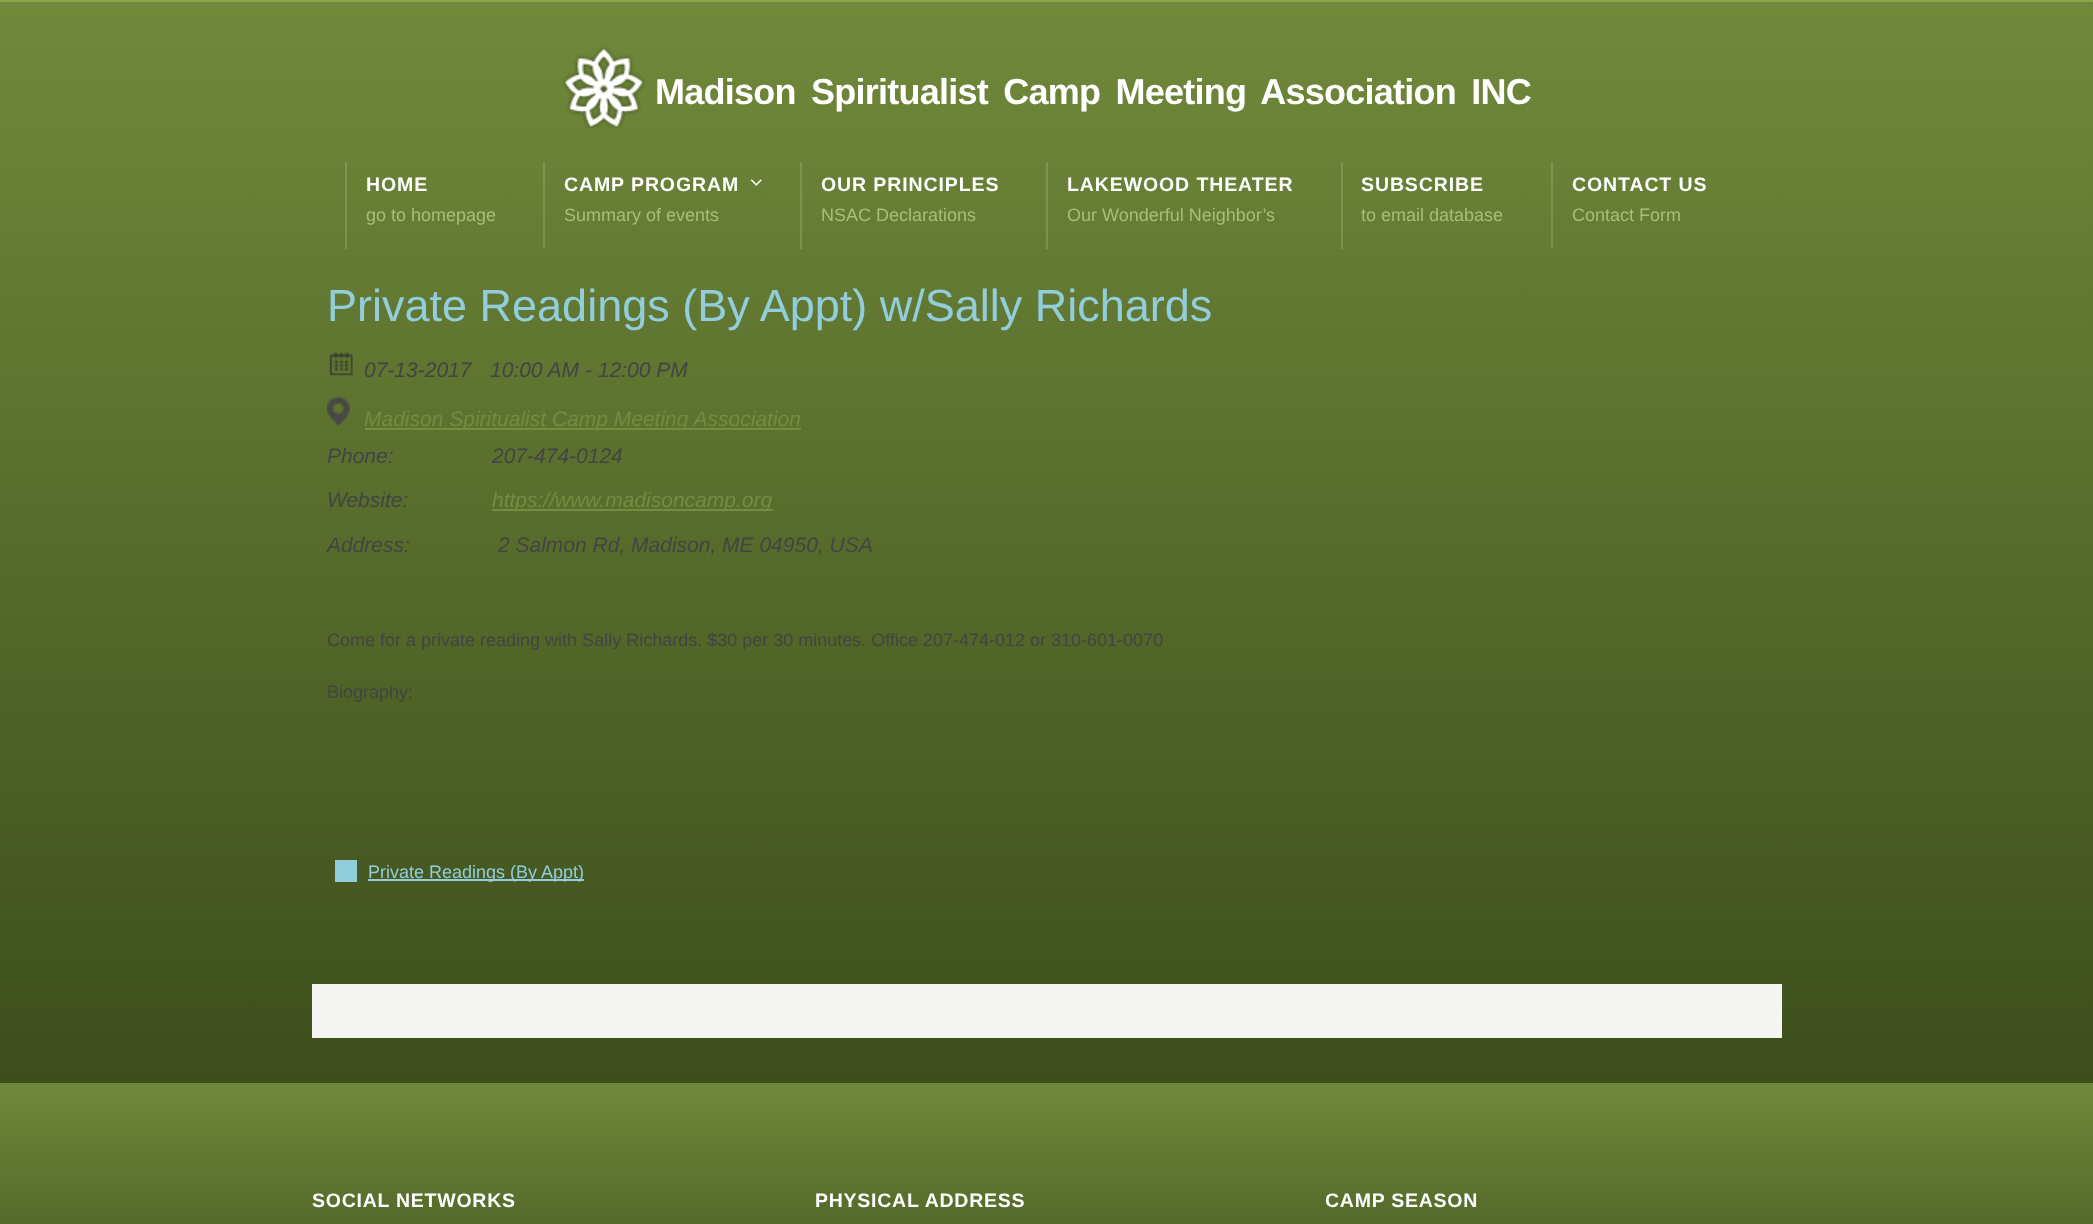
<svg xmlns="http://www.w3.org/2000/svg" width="2093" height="1224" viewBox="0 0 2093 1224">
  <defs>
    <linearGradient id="g1" gradientUnits="userSpaceOnUse" x1="1047" y1="1.5" x2="1047" y2="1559"><stop offset="0" stop-color="#71893b"/><stop offset="0.8" stop-color="#354516"/></linearGradient>
    <linearGradient id="g2" gradientUnits="userSpaceOnUse" x1="1047" y1="1.5" x2="1047" y2="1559"><stop offset="0" stop-color="#869b58"/><stop offset="0.8" stop-color="#536139"/></linearGradient>
    <linearGradient id="g3" gradientUnits="userSpaceOnUse" x1="1047" y1="1083" x2="1047" y2="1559"><stop offset="0" stop-color="#71893b"/><stop offset="0.64" stop-color="#354516"/></linearGradient>
  </defs>
  <rect width="100%" height="100%" fill="#fff"/>
  <path d="M0 2h2093v1081H0z" fill="url(#g1)"/>
  <path d="M1551 162h2v87H1551z" fill="url(#g2)"/>
  <path d="M1341 162h2v87H1341z" fill="url(#g2)"/>
  <path d="M1046 162h2v87H1046z" fill="url(#g2)"/>
  <path d="M800 162h2v87H800z" fill="url(#g2)"/>
  <path d="M543 162h2v87H543z" fill="url(#g2)"/>
  <path d="M345 162h2v87H345z" fill="url(#g2)"/>
  <path d="M0 0h2093v2H0z" fill="#8aa449"/>
  <image x="563" y="47" width="82" height="82" href="img/1.png"/>
  <image x="750" y="179" width="12" height="7" href="img/2.png"/>
  <image x="329" y="352" width="24" height="24" href="img/3.png"/>
  <image x="327" y="397" width="23" height="29" href="img/4.png"/>
  <path d="M365 428h436v2H365z" fill="#758b41"/>
  <path d="M492 509h281v2H492z" fill="#758b41"/>
  <path d="M335 860h22v22H335z" fill="#92cddc"/>
  <path d="M368 879h216v2H368z" fill="#92cddc"/>
  <path d="M312 984h1470v54H312z" fill="#f4f4f2"/>
  <path d="M0 1083h2093v141H0z" fill="url(#g3)"/>
  <text x="655" y="104" word-spacing="6" font-family="Liberation Sans" font-size="36" font-weight="bold" letter-spacing="-0.75" fill="#fff">Madison Spiritualist Camp Meeting Association INC</text>
  <text x="366" y="191" font-family="Liberation Sans" font-size="19.5" font-weight="bold" letter-spacing="0.9" fill="#fff">HOME</text>
  <text x="366" y="221" font-family="Liberation Sans" font-size="18" fill="#a9bd79">go to homepage</text>
  <text x="564" y="191" font-family="Liberation Sans" font-size="19.5" font-weight="bold" letter-spacing="0.9" fill="#fff">CAMP PROGRAM</text>
  <text x="564" y="221" font-family="Liberation Sans" font-size="18" fill="#a9bd79">Summary of events</text>
  <text x="821" y="191" font-family="Liberation Sans" font-size="19.5" font-weight="bold" letter-spacing="0.9" fill="#fff">OUR PRINCIPLES</text>
  <text x="821" y="221" font-family="Liberation Sans" font-size="18" fill="#a9bd79">NSAC Declarations</text>
  <text x="1067" y="191" font-family="Liberation Sans" font-size="19.5" font-weight="bold" letter-spacing="0.9" fill="#fff">LAKEWOOD THEATER</text>
  <text x="1067" y="221" font-family="Liberation Sans" font-size="18" fill="#a9bd79">Our Wonderful Neighbor’s</text>
  <text x="1361" y="191" font-family="Liberation Sans" font-size="19.5" font-weight="bold" letter-spacing="0.9" fill="#fff">SUBSCRIBE</text>
  <text x="1361" y="221" font-family="Liberation Sans" font-size="18" fill="#a9bd79">to email database</text>
  <text x="1572" y="191" font-family="Liberation Sans" font-size="19.5" font-weight="bold" letter-spacing="0.9" fill="#fff">CONTACT US</text>
  <text x="1572" y="221" font-family="Liberation Sans" font-size="18" fill="#a9bd79">Contact Form</text>
  <text x="327" y="321" font-family="Liberation Sans" font-size="45" fill="#92cddc">Private Readings (By Appt) w/Sally Richards</text>
  <g font-family="Liberation Sans" font-size="21" font-style="italic" fill="#444">
    <text x="364" y="377">07-13-2017</text>
    <text x="490" y="377">10:00 AM - 12:00 PM</text>
  </g>
  <text x="364" y="426" font-family="Liberation Sans" font-size="21" font-style="italic" fill="#758b41">Madison Spiritualist Camp Meeting Association</text>
  <g font-family="Liberation Sans" font-size="21" font-style="italic" fill="#444">
    <text x="327" y="463">Phone:</text>
    <text x="492" y="463">207-474-0124</text>
    <text x="327" y="507">Website:</text>
  </g>
  <text x="492" y="507" font-family="Liberation Sans" font-size="21" font-style="italic" fill="#758b41">https://www.madisoncamp.org</text>
  <g font-family="Liberation Sans" font-size="21" font-style="italic" fill="#444">
    <text x="327" y="552">Address:</text>
    <text x="498" y="552">2 Salmon Rd, Madison, ME 04950, USA</text>
  </g>
  <g font-family="Liberation Sans" font-size="18" fill="#444">
    <text x="327" y="646">Come for a private reading with Sally Richards. $30 per 30 minutes. Office 207-474-012 or 310-601-0070</text>
    <text x="327" y="698">Biography:</text>
  </g>
  <text x="368" y="878" font-family="Liberation Sans" font-size="18" fill="#92cddc">Private Readings (By Appt)</text>
  <g font-family="Liberation Sans" font-size="19.5" font-weight="bold" letter-spacing="0.75" fill="#fff">
    <text x="312" y="1207">SOCIAL NETWORKS</text>
    <text x="815" y="1207">PHYSICAL ADDRESS</text>
    <text x="1325" y="1207">CAMP SEASON</text>
  </g>
</svg>
